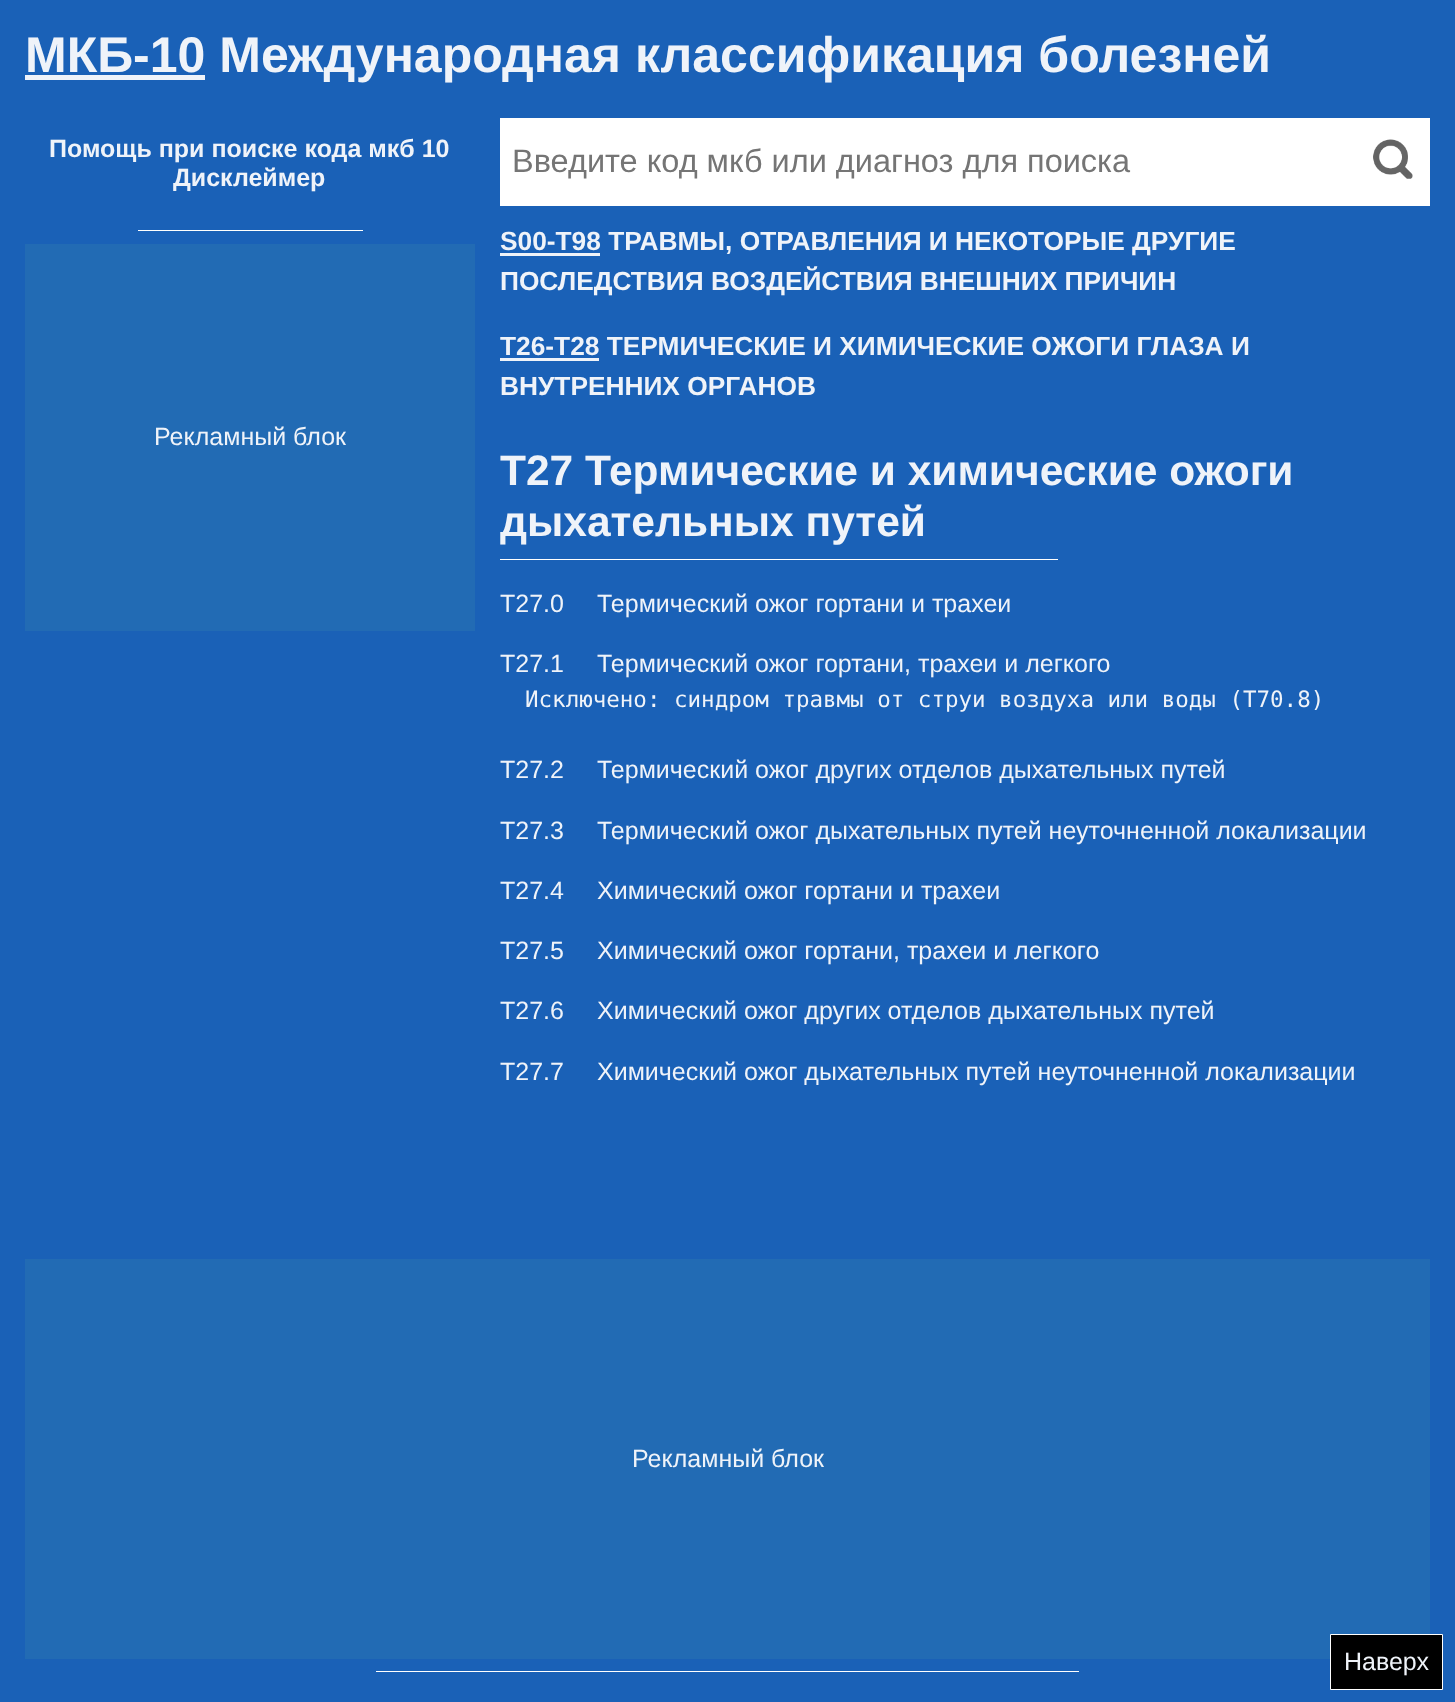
<svg xmlns="http://www.w3.org/2000/svg" width="1455" height="1702" viewBox="0 0 1455 1702">
  <rect width="100%" height="100%" fill="#1a61b7"/>
  <path d="M25 75h180v5H25z" fill="#eff3f9"/>
  <path d="M138 230h225v1H138z" fill="#fff"/>
  <path d="M25 244h450v387H25z" fill="#226bb4"/>
  <path d="M500 118h930v88H500z" fill="#fff"/>
  <image x="1373" y="139" width="40" height="40" href="img/1.png"/>
  <path d="M500 253h100v3H500z" fill="#eff3f9"/>
  <path d="M500 358h99v3H500z" fill="#eff3f9"/>
  <path d="M500 559h558v1H500z" fill="#fff"/>
  <path d="M25 1259h1405v400H25z" fill="#226bb4"/>
  <path d="M376 1671h703v1H376z" fill="#fff"/>
  <path d="M1330.5 1634.5h112v55H1330.5z" fill="#000" stroke="#fff"/>
  <text x="25" y="72" font-family="Liberation Sans" font-size="50" font-weight="bold" fill="#eff3f9">МКБ-10 Международная классификация болезней</text>
  <g font-family="Liberation Sans" font-size="25" font-weight="bold" fill="#eff3f9">
    <text x="49" y="157">Помощь при поиске кода мкб 10</text>
    <text x="173" y="186">Дисклеймер</text>
  </g>
  <text x="154" y="445" font-family="Liberation Sans" font-size="25" fill="#eff3f9">Рекламный блок</text>
  <text x="512" y="172" font-family="Liberation Sans" font-size="32.5" fill="#757575">Введите код мкб или диагноз для поиска</text>
  <g font-family="Liberation Sans" font-size="26.3" font-weight="bold" fill="#eff3f9">
    <text x="500" y="250">S00-T98 ТРАВМЫ, ОТРАВЛЕНИЯ И НЕКОТОРЫЕ ДРУГИЕ</text>
    <text x="500" y="290">ПОСЛЕДСТВИЯ ВОЗДЕЙСТВИЯ ВНЕШНИХ ПРИЧИН</text>
    <text x="500" y="355">T26-T28 ТЕРМИЧЕСКИЕ И ХИМИЧЕСКИЕ ОЖОГИ ГЛАЗА И</text>
    <text x="500" y="395">ВНУТРЕННИХ ОРГАНОВ</text>
  </g>
  <g font-family="Liberation Sans" font-size="42.5" font-weight="bold" fill="#eff3f9">
    <text x="500" y="485">T27 Термические и химические ожоги</text>
    <text x="500" y="536">дыхательных путей</text>
  </g>
  <g font-family="Liberation Sans" font-size="25" fill="#eff3f9">
    <text x="500" y="612">T27.0</text>
    <text x="597" y="612">Термический ожог гортани и трахеи</text>
    <text x="500" y="672">T27.1</text>
    <text x="597" y="672">Термический ожог гортани, трахеи и легкого</text>
  </g>
  <text x="525" y="707" font-family="DejaVu Sans Mono" font-size="22.5" fill="#eff3f9">Исключено: синдром травмы от струи воздуха или воды (T70.8)</text>
  <g font-family="Liberation Sans" font-size="25" fill="#eff3f9">
    <text x="500" y="778">T27.2</text>
    <text x="597" y="778">Термический ожог других отделов дыхательных путей</text>
    <text x="500" y="839">T27.3</text>
    <text x="597" y="839">Термический ожог дыхательных путей неуточненной локализации</text>
    <text x="500" y="899">T27.4</text>
    <text x="597" y="899">Химический ожог гортани и трахеи</text>
    <text x="500" y="959">T27.5</text>
    <text x="597" y="959">Химический ожог гортани, трахеи и легкого</text>
    <text x="500" y="1019">T27.6</text>
    <text x="597" y="1019">Химический ожог других отделов дыхательных путей</text>
    <text x="500" y="1080">T27.7</text>
    <text x="597" y="1080">Химический ожог дыхательных путей неуточненной локализации</text>
    <text x="632" y="1467">Рекламный блок</text>
    <text x="1344" y="1670">Наверх</text>
  </g>
</svg>
